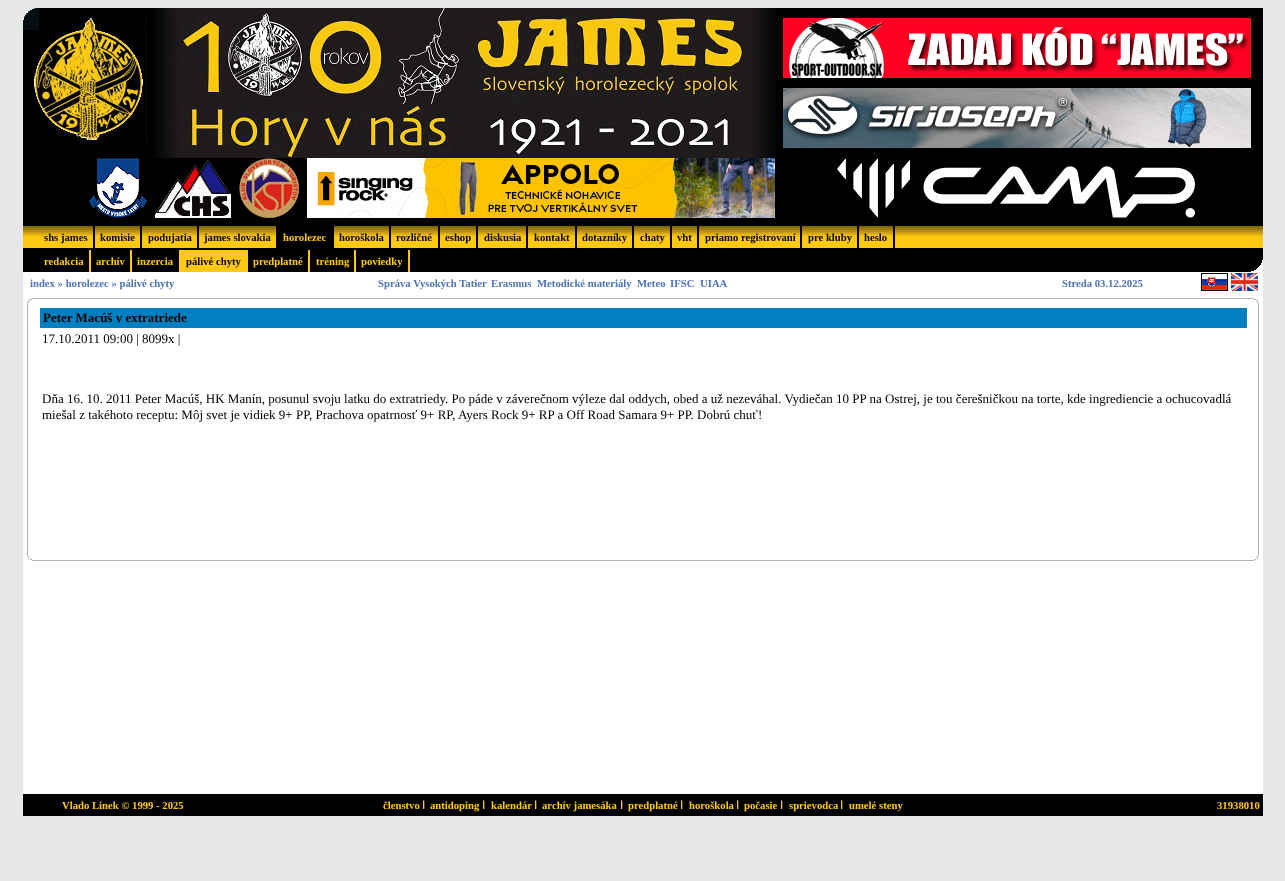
<svg xmlns="http://www.w3.org/2000/svg" width="1285" height="881" viewBox="0 0 1285 881">
  <rect width="100%" height="100%" fill="#e6e7e8"/>
  <path d="M23 272h1240v522H23z" fill="#fff"/>
  <image x="23" y="8" width="16" height="22" href="img/1.png"/>
  <image x="23" y="30" width="16" height="196" href="img/2.png"/>
  <path d="M39 8h1224v218H39z" fill="#000"/>
  <image x="39" y="16" width="109" height="132" href="img/3.png"/>
  <image x="154" y="8" width="622" height="150" href="img/4.png"/>
  <image x="89" y="158" width="58" height="60" href="img/5.png"/>
  <image x="155" y="160" width="76" height="58" href="img/6.png"/>
  <image x="239" y="158" width="60" height="60" href="img/7.png"/>
  <image x="307" y="158" width="468" height="60" href="img/8.png"/>
  <image x="783" y="18" width="468" height="60" href="img/9.png"/>
  <image x="783" y="88" width="468" height="60" href="img/10.png"/>
  <image x="837" y="158" width="358" height="60" href="img/11.png"/>
  <image x="23" y="226" width="16" height="22" href="img/12.png"/>
  <image x="39" y="226" width="1208" height="22" href="img/13.png"/>
  <path d="M93 226h2v22H93z" fill="#000"/>
  <path d="M140 226h2v22H140z" fill="#000"/>
  <path d="M197 226h2v22H197z" fill="#000"/>
  <path d="M276 226h58v22H276z" fill="#000"/>
  <path d="M389 226h2v22H389z" fill="#000"/>
  <path d="M438 226h2v22H438z" fill="#000"/>
  <path d="M476 226h2v22H476z" fill="#000"/>
  <path d="M526 226h2v22H526z" fill="#000"/>
  <path d="M575 226h2v22H575z" fill="#000"/>
  <path d="M632 226h2v22H632z" fill="#000"/>
  <path d="M670 226h2v22H670z" fill="#000"/>
  <path d="M697 226h2v22H697z" fill="#000"/>
  <path d="M800 226h2v22H800z" fill="#000"/>
  <path d="M857 226h2v22H857z" fill="#000"/>
  <path d="M893 226h2v22H893z" fill="#000"/>
  <image x="1247" y="226" width="16" height="22" href="img/12.png"/>
  <path d="M23 248h1240v2H23z" fill="#000"/>
  <path d="M23 250h1224v22H23z" fill="#000"/>
  <image x="1247" y="250" width="16" height="22" href="img/14.png"/>
  <path d="M89 250h2v22H89z" fill="#ffc912"/>
  <path d="M130 250h2v22H130z" fill="#ffc912"/>
  <path d="M179 250h69v22H179z" fill="#ffc912"/>
  <path d="M308 250h2v22H308z" fill="#ffc912"/>
  <path d="M354 250h2v22H354z" fill="#ffc912"/>
  <path d="M408 250h2v22H408z" fill="#ffc912"/>
  <image x="1201" y="273" width="27" height="18" href="img/15.png"/>
  <image x="1231" y="273" width="27" height="18" href="img/16.png"/>
  <image x="27" y="298" width="12" height="10" href="img/17.png"/>
  <path d="M39 298h1208v1H39z" fill="#b2b2b2"/>
  <image x="1247" y="298" width="12" height="10" href="img/18.png"/>
  <path d="M27 308h1v243H27z" fill="#b2b2b2"/>
  <path d="M40 308h1207v20H40z" fill="#0080c0"/>
  <path d="M1258 308h1v243H1258z" fill="#b2b2b2"/>
  <image x="27" y="551" width="12" height="10" href="img/19.png"/>
  <path d="M39 560h1208v1H39z" fill="#b2b2b2"/>
  <image x="1247" y="551" width="12" height="10" href="img/20.png"/>
  <path d="M23 794h1240v22H23z" fill="#000"/>
  <g font-family="Liberation Serif" font-size="10.7" font-weight="bold" fill="#000">
    <text x="44" y="241">shs james</text>
    <text x="100" y="241">komisie</text>
    <text x="148" y="241">podujatia</text>
    <text x="204" y="241">james slovakia</text>
  </g>
  <text x="283" y="241" font-family="Liberation Serif" font-size="10.7" font-weight="bold" fill="#ffc912">horolezec</text>
  <g font-family="Liberation Serif" font-size="10.7" font-weight="bold" fill="#000">
    <text x="339" y="241">horoškola</text>
    <text x="396" y="241">rozličné</text>
    <text x="445" y="241">eshop</text>
    <text x="484" y="241">diskusia</text>
    <text x="534" y="241">kontakt</text>
    <text x="582" y="241">dotazníky</text>
    <text x="640" y="241">chaty</text>
    <text x="677" y="241">vht</text>
    <text x="705" y="241">priamo registrovaní</text>
    <text x="808" y="241">pre kluby</text>
    <text x="864" y="241">heslo</text>
  </g>
  <g font-family="Liberation Serif" font-size="10.7" font-weight="bold" fill="#ffc912">
    <text x="44" y="265">redakcia</text>
    <text x="96" y="265">archív</text>
    <text x="137" y="265">inzercia</text>
  </g>
  <text x="186" y="265" font-family="Liberation Serif" font-size="10.7" font-weight="bold" fill="#000">pálivé chyty</text>
  <g font-family="Liberation Serif" font-size="10.7" font-weight="bold" fill="#ffc912">
    <text x="253" y="265">predplatné</text>
    <text x="316" y="265">tréning</text>
    <text x="361" y="265">poviedky</text>
  </g>
  <g font-family="Liberation Serif" font-size="10.7" font-weight="bold" fill="#4d73b9">
    <text x="30" y="287">index » horolezec » pálivé chyty</text>
    <text x="378" y="287">Správa Vysokých Tatier</text>
    <text x="491" y="287">Erasmus</text>
    <text x="537" y="287">Metodické materiály</text>
    <text x="637" y="287">Meteo</text>
    <text x="670" y="287">IFSC</text>
    <text x="700" y="287">UIAA</text>
    <text x="1062" y="287">Streda 03.12.2025</text>
  </g>
  <text x="43" y="322" font-family="Liberation Serif" font-size="13" font-weight="bold" fill="#000">Peter Macúš v extratriede</text>
  <g font-family="Liberation Serif" font-size="13" fill="#000">
    <text x="42" y="343">17.10.2011 09:00 | 8099x |</text>
    <text x="42" y="403">Dňa 16. 10. 2011 Peter Macúš, HK Manín, posunul svoju latku do extratriedy. Po páde v záverečnom výleze dal oddych, obed a už nezeváhal. Vydiečan 10 PP na Ostrej, je tou čerešničkou na torte, kde ingrediencie a ochucovadlá</text>
    <text x="42" y="419">miešal z takéhoto receptu: Môj svet je vidiek 9+ PP, Prachova opatrnosť 9+ RP, Ayers Rock 9+ RP a Off Road Samara 9+ PP. Dobrú chuť!</text>
  </g>
  <g font-family="Liberation Serif" font-size="10.7" font-weight="bold" fill="#ffc912">
    <text x="62" y="809">Vlado Linek © 1999 - 2025</text>
    <text x="383" y="809">členstvo</text>
  </g>
  <text x="425" y="809" font-family="DejaVu Sans" font-size="10.7" font-weight="bold" direction="rtl" fill="#ffc912">ا</text>
  <text x="430" y="809" font-family="Liberation Serif" font-size="10.7" font-weight="bold" fill="#ffc912">antidoping</text>
  <text x="485" y="809" font-family="DejaVu Sans" font-size="10.7" font-weight="bold" direction="rtl" fill="#ffc912">ا</text>
  <text x="491" y="809" font-family="Liberation Serif" font-size="10.7" font-weight="bold" fill="#ffc912">kalendár</text>
  <text x="537" y="809" font-family="DejaVu Sans" font-size="10.7" font-weight="bold" direction="rtl" fill="#ffc912">ا</text>
  <text x="542" y="809" font-family="Liberation Serif" font-size="10.7" font-weight="bold" fill="#ffc912">archív jamesáka</text>
  <text x="623" y="809" font-family="DejaVu Sans" font-size="10.7" font-weight="bold" direction="rtl" fill="#ffc912">ا</text>
  <text x="628" y="809" font-family="Liberation Serif" font-size="10.7" font-weight="bold" fill="#ffc912">predplatné</text>
  <text x="683" y="809" font-family="DejaVu Sans" font-size="10.7" font-weight="bold" direction="rtl" fill="#ffc912">ا</text>
  <text x="689" y="809" font-family="Liberation Serif" font-size="10.7" font-weight="bold" fill="#ffc912">horoškola</text>
  <text x="739" y="809" font-family="DejaVu Sans" font-size="10.7" font-weight="bold" direction="rtl" fill="#ffc912">ا</text>
  <text x="744" y="809" font-family="Liberation Serif" font-size="10.7" font-weight="bold" fill="#ffc912">počasie</text>
  <text x="783" y="809" font-family="DejaVu Sans" font-size="10.7" font-weight="bold" direction="rtl" fill="#ffc912">ا</text>
  <text x="789" y="809" font-family="Liberation Serif" font-size="10.7" font-weight="bold" fill="#ffc912">sprievodca</text>
  <text x="843" y="809" font-family="DejaVu Sans" font-size="10.7" font-weight="bold" direction="rtl" fill="#ffc912">ا</text>
  <g font-family="Liberation Serif" font-size="10.7" font-weight="bold" fill="#ffc912">
    <text x="849" y="809">umelé steny</text>
    <text x="1217" y="809">31938010</text>
  </g>
</svg>
